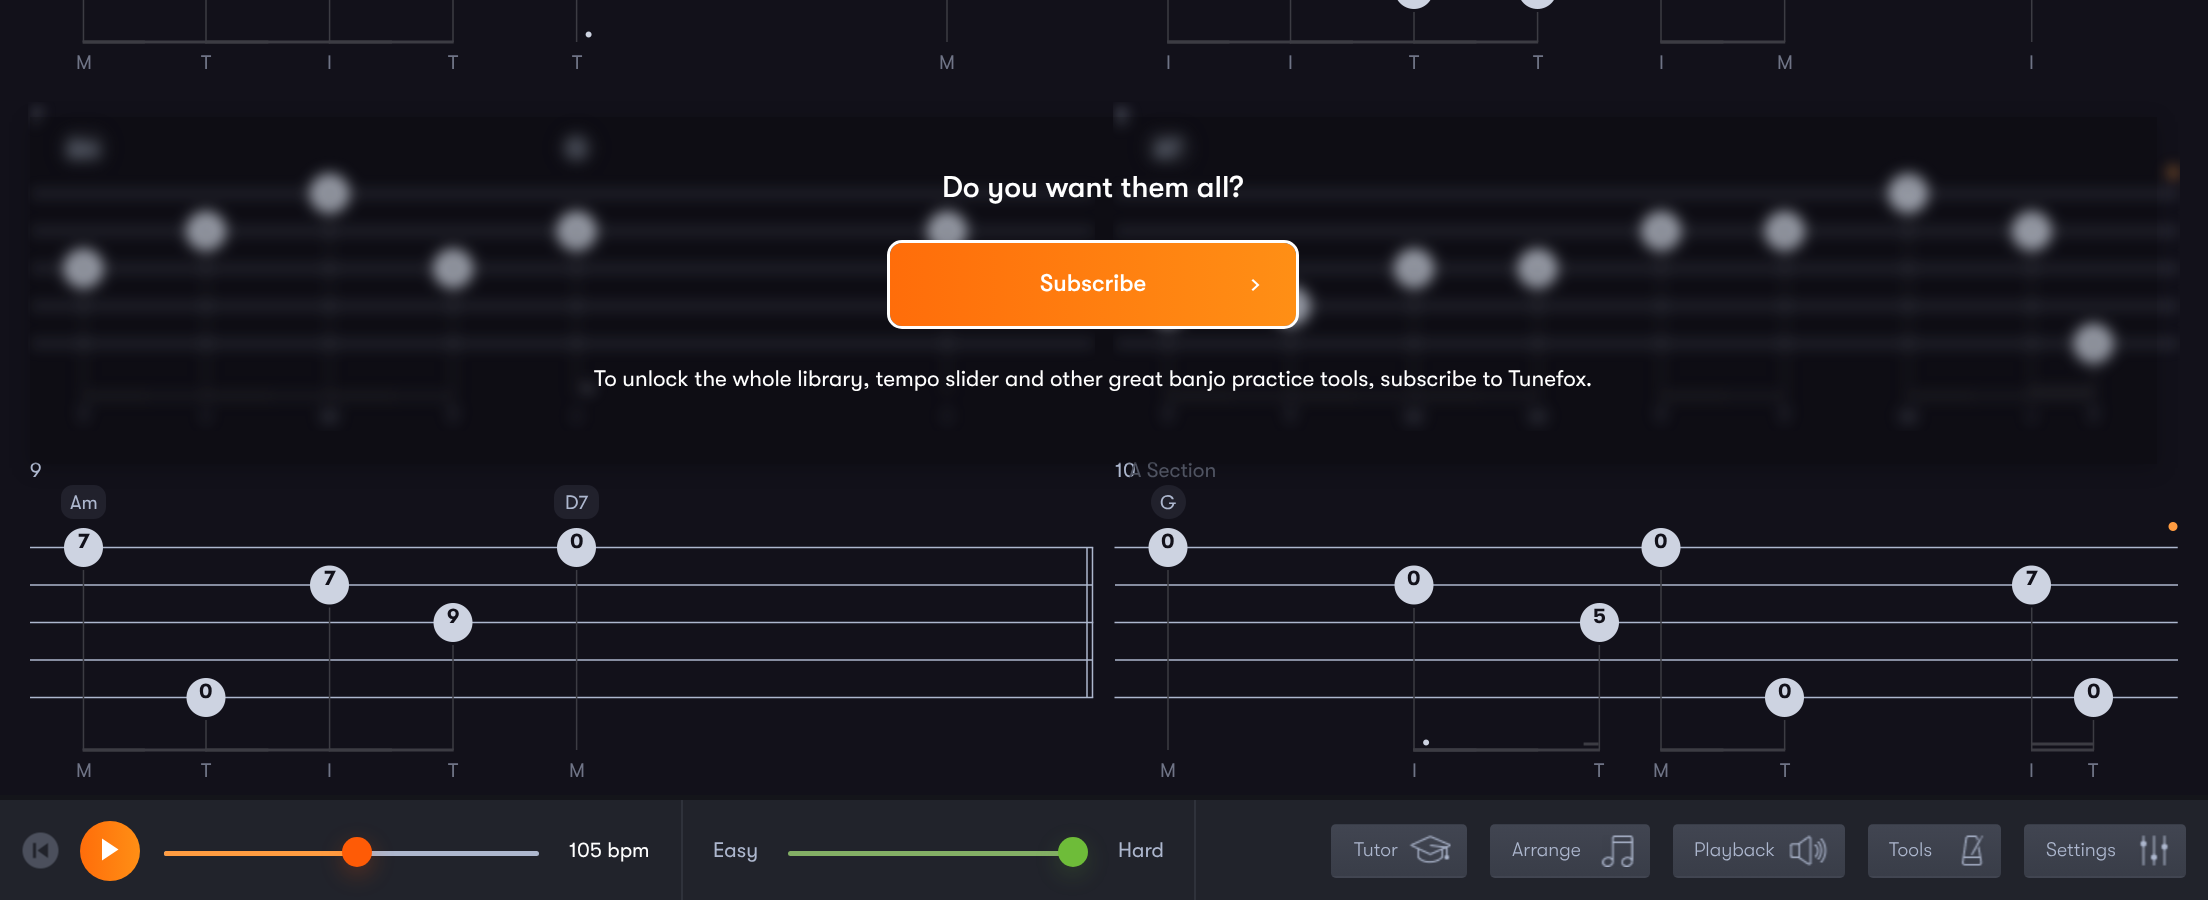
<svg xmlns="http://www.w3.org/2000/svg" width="2208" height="900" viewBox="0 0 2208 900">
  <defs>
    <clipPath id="clip1"><path d="M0 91H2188V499H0ZM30 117H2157V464H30Z" clip-rule="evenodd"/></clipPath>
    <linearGradient id="g1" gradientUnits="userSpaceOnUse" x1="80" y1="851" x2="140" y2="851"><stop offset="0" stop-color="#ff6d0a"/><stop offset="1" stop-color="#ff8f15"/></linearGradient>
    <clipPath id="clip2"><rect x="1331" y="824" width="136" height="54" rx="5"/></clipPath>
    <linearGradient id="g2" gradientUnits="userSpaceOnUse" x1="1399" y1="825" x2="1399" y2="774"><stop offset="0" stop-color="#393d48"/><stop offset="1" stop-color="#414551"/></linearGradient>
    <linearGradient id="g3" gradientUnits="userSpaceOnUse" x1="1399" y1="876" x2="1399" y2="825"><stop offset="0" stop-color="#393d48"/><stop offset="1" stop-color="#414551"/></linearGradient>
    <linearGradient id="g4" gradientUnits="userSpaceOnUse" x1="1399" y1="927" x2="1399" y2="876"><stop offset="0" stop-color="#393d48"/><stop offset="1" stop-color="#414551"/></linearGradient>
    <clipPath id="clip3"><rect x="1490" y="824" width="160" height="54" rx="5"/></clipPath>
    <linearGradient id="g5" gradientUnits="userSpaceOnUse" x1="1570" y1="825" x2="1570" y2="774"><stop offset="0" stop-color="#393d48"/><stop offset="1" stop-color="#414551"/></linearGradient>
    <linearGradient id="g6" gradientUnits="userSpaceOnUse" x1="1570" y1="876" x2="1570" y2="825"><stop offset="0" stop-color="#393d48"/><stop offset="1" stop-color="#414551"/></linearGradient>
    <linearGradient id="g7" gradientUnits="userSpaceOnUse" x1="1570" y1="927" x2="1570" y2="876"><stop offset="0" stop-color="#393d48"/><stop offset="1" stop-color="#414551"/></linearGradient>
    <clipPath id="clip4"><rect x="1673" y="824" width="172" height="54" rx="5"/></clipPath>
    <linearGradient id="g8" gradientUnits="userSpaceOnUse" x1="1759" y1="825" x2="1759" y2="774"><stop offset="0" stop-color="#393d48"/><stop offset="1" stop-color="#414551"/></linearGradient>
    <linearGradient id="g9" gradientUnits="userSpaceOnUse" x1="1759" y1="876" x2="1759" y2="825"><stop offset="0" stop-color="#393d48"/><stop offset="1" stop-color="#414551"/></linearGradient>
    <linearGradient id="g10" gradientUnits="userSpaceOnUse" x1="1759" y1="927" x2="1759" y2="876"><stop offset="0" stop-color="#393d48"/><stop offset="1" stop-color="#414551"/></linearGradient>
    <clipPath id="clip5"><rect x="1868" y="824" width="133" height="54" rx="5"/></clipPath>
    <linearGradient id="g11" gradientUnits="userSpaceOnUse" x1="1934" y1="825" x2="1934" y2="774"><stop offset="0" stop-color="#393d48"/><stop offset="1" stop-color="#414551"/></linearGradient>
    <linearGradient id="g12" gradientUnits="userSpaceOnUse" x1="1934" y1="876" x2="1934" y2="825"><stop offset="0" stop-color="#393d48"/><stop offset="1" stop-color="#414551"/></linearGradient>
    <linearGradient id="g13" gradientUnits="userSpaceOnUse" x1="1934" y1="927" x2="1934" y2="876"><stop offset="0" stop-color="#393d48"/><stop offset="1" stop-color="#414551"/></linearGradient>
    <clipPath id="clip6"><rect x="2024" y="824" width="162" height="54" rx="5"/></clipPath>
    <linearGradient id="g14" gradientUnits="userSpaceOnUse" x1="2105" y1="825" x2="2105" y2="774"><stop offset="0" stop-color="#393d48"/><stop offset="1" stop-color="#414551"/></linearGradient>
    <linearGradient id="g15" gradientUnits="userSpaceOnUse" x1="2105" y1="876" x2="2105" y2="825"><stop offset="0" stop-color="#393d48"/><stop offset="1" stop-color="#414551"/></linearGradient>
    <linearGradient id="g16" gradientUnits="userSpaceOnUse" x1="2105" y1="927" x2="2105" y2="876"><stop offset="0" stop-color="#393d48"/><stop offset="1" stop-color="#414551"/></linearGradient>
    <linearGradient id="g17" gradientUnits="userSpaceOnUse" x1="890" y1="284" x2="1296" y2="284"><stop offset="0" stop-color="#ff6d0a"/><stop offset="1" stop-color="#ff8f15"/></linearGradient>
  </defs>
  <rect width="100%" height="100%" fill="#12111a"/>
  <image x="82" y="0" width="866" height="44" href="img/1.png"/>
  <image x="1167" y="0" width="866" height="44" href="img/2.png"/>
  <image x="28" y="102" width="1067" height="329" href="img/3.png"/>
  <image x="1113" y="102" width="1067" height="329" href="img/5.png"/>
  <image x="30" y="485" width="1064" height="267" href="img/6.png"/>
  <image x="1114" y="485" width="1064" height="267" href="img/7.png"/>
  <g clip-path="url(#clip1)">
    <path d="M30 122h2127v346H30z" fill="#00000033" filter="blur(10px)"/>
  </g>
  <path d="M0 800h2208v100H0z" fill="#21232b"/>
  <path d="M0 795h2208v5H0z" fill="#14151a"/>
  <image x="22" y="832" width="37" height="37" href="img/8.png"/>
  <circle cx="110" cy="851" r="30" fill="url(#g1)"/>
  <path d="M102 838.5L118.5 849.5L102 860.5Z" fill="#fff" fill-rule="evenodd"/>
  <rect x="164" y="851" width="375" height="5" rx="2.5" fill="#adb7ce"/>
  <rect x="164" y="851" width="193" height="5" rx="2.5" fill="#ff9c41"/>
  <rect x="341" y="843" width="33" height="33" rx="16.5" fill="#fe5b0633" filter="blur(10.5px)"/>
  <circle cx="357" cy="852" r="15" fill="#fe5b06"/>
  <path d="M681 800h2v100H681z" fill="#2f323b"/>
  <rect x="788" y="851" width="285" height="5" rx="2.5" fill="#83af65"/>
  <rect x="1056" y="843" width="33" height="33" rx="16.5" fill="#6ebc3926" filter="blur(10.5px)"/>
  <circle cx="1073" cy="852" r="15" fill="#6ebc39"/>
  <path d="M1194 800h2v100H1194z" fill="#2f323b"/>
  <g clip-path="url(#clip2)">
    <path d="M1331 824h136v1H1331z" fill="url(#g2)"/>
    <path d="M1331 825h136v51H1331z" fill="url(#g3)"/>
    <path d="M1331 876h136v2H1331z" fill="url(#g4)"/>
  </g>
  <image x="1409" y="835" width="42" height="29" href="img/9.png"/>
  <g clip-path="url(#clip3)">
    <path d="M1490 824h160v1H1490z" fill="url(#g5)"/>
    <path d="M1490 825h160v51H1490z" fill="url(#g6)"/>
    <path d="M1490 876h160v2H1490z" fill="url(#g7)"/>
  </g>
  <image x="1601" y="835" width="33" height="32" href="img/10.png"/>
  <g clip-path="url(#clip4)">
    <path d="M1673 824h172v1H1673z" fill="url(#g8)"/>
    <path d="M1673 825h172v51H1673z" fill="url(#g9)"/>
    <path d="M1673 876h172v2H1673z" fill="url(#g10)"/>
  </g>
  <image x="1789" y="835" width="39" height="31" href="img/11.png"/>
  <g clip-path="url(#clip5)">
    <path d="M1868 824h133v1H1868z" fill="url(#g11)"/>
    <path d="M1868 825h133v51H1868z" fill="url(#g12)"/>
    <path d="M1868 876h133v2H1868z" fill="url(#g13)"/>
  </g>
  <image x="1961" y="835" width="23" height="31" href="img/12.png"/>
  <g clip-path="url(#clip6)">
    <path d="M2024 824h162v1H2024z" fill="url(#g14)"/>
    <path d="M2024 825h162v51H2024z" fill="url(#g15)"/>
    <path d="M2024 876h162v2H2024z" fill="url(#g16)"/>
  </g>
  <image x="2139" y="835" width="30" height="31" href="img/13.png"/>
  <g font-family="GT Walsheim" font-size="19.5" fill="#6f7486">
    <text x="76" y="69">M</text>
    <text x="201" y="69">T</text>
    <text x="327" y="69">I</text>
    <text x="448" y="69">T</text>
    <text x="572" y="69">T</text>
    <text x="939" y="69">M</text>
    <text x="1166" y="69">I</text>
    <text x="1288" y="69">I</text>
    <text x="1409" y="69">T</text>
    <text x="1533" y="69">T</text>
    <text x="1659" y="69">I</text>
    <text x="1777" y="69">M</text>
    <text x="2029" y="69">I</text>
  </g>
  <text x="30" y="477" font-family="GT Walsheim" font-size="21" fill="#adb7ce">9</text>
  <g font-family="GT Walsheim" font-size="19.5" fill="#adb7ce">
    <text x="70" y="509">Am</text>
    <text x="565" y="509">D7</text>
  </g>
  <g font-family="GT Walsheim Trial" font-size="21" font-weight="bold" fill="#12111a">
    <text x="78" y="548">7</text>
    <text x="570" y="548">0</text>
    <text x="324" y="585">7</text>
    <text x="447" y="623">9</text>
    <text x="199" y="698">0</text>
  </g>
  <g font-family="GT Walsheim" font-size="19.5" fill="#6f7486">
    <text x="76" y="777">M</text>
    <text x="201" y="777">T</text>
    <text x="327" y="777">I</text>
    <text x="448" y="777">T</text>
    <text x="569" y="777">M</text>
  </g>
  <text x="1115" y="477" font-family="GT Walsheim" font-size="21" fill="#adb7ce">10</text>
  <text x="1129" y="477" font-family="GT Walsheim" font-size="21" fill="#4f5361">A Section</text>
  <path d="M30 117h2127v347H30z" fill="#00000033"/>
  <text x="594" y="386" font-family="GT Walsheim" font-size="22.5" fill="#fff">To unlock the whole library, tempo slider and other great banjo practice tools, subscribe to Tunefox.</text>
  <rect x="890" y="243" width="406" height="83" rx="12" fill="url(#g17)"/>
  <image x="1251" y="279" width="9" height="12" href="img/4.png"/>
  <rect x="888.5" y="241.5" width="409" height="86" rx="13.5" fill="none" stroke="#fff" stroke-width="3"/>
  <text x="1040" y="291" font-family="GT Walsheim" font-size="24" font-weight="500" fill="#fff">Subscribe</text>
  <text x="942" y="197" font-family="GT Walsheim" font-size="30" font-weight="500" fill="#fff">Do you want them all?</text>
  <text x="1160" y="509" font-family="GT Walsheim" font-size="19.5" fill="#adb7ce">G</text>
  <g font-family="GT Walsheim Trial" font-size="21" font-weight="bold" fill="#12111a">
    <text x="1161" y="548">0</text>
    <text x="1654" y="548">0</text>
    <text x="1407" y="585">0</text>
    <text x="2026" y="585">7</text>
    <text x="1593" y="623">5</text>
    <text x="1778" y="698">0</text>
    <text x="2087" y="698">0</text>
  </g>
  <g font-family="GT Walsheim" font-size="19.5" fill="#6f7486">
    <text x="1160" y="777">M</text>
    <text x="1412" y="777">I</text>
    <text x="1594" y="777">T</text>
    <text x="1653" y="777">M</text>
    <text x="1780" y="777">T</text>
    <text x="2029" y="777">I</text>
    <text x="2088" y="777">T</text>
  </g>
  <text x="569" y="857" font-family="GT Walsheim" font-size="21" fill="#fff">105 bpm</text>
  <g font-family="GT Walsheim" font-size="21" fill="#adb7ce">
    <text x="713" y="857">Easy</text>
    <text x="1118" y="857">Hard</text>
  </g>
  <g font-family="GT Walsheim" font-size="19.5" font-weight="300" fill="#adb7ce">
    <text x="1354" y="856">Tutor</text>
    <text x="1512" y="856">Arrange</text>
    <text x="1694" y="856">Playback</text>
    <text x="1889" y="856">Tools</text>
    <text x="2046" y="856">Settings</text>
  </g>
</svg>
